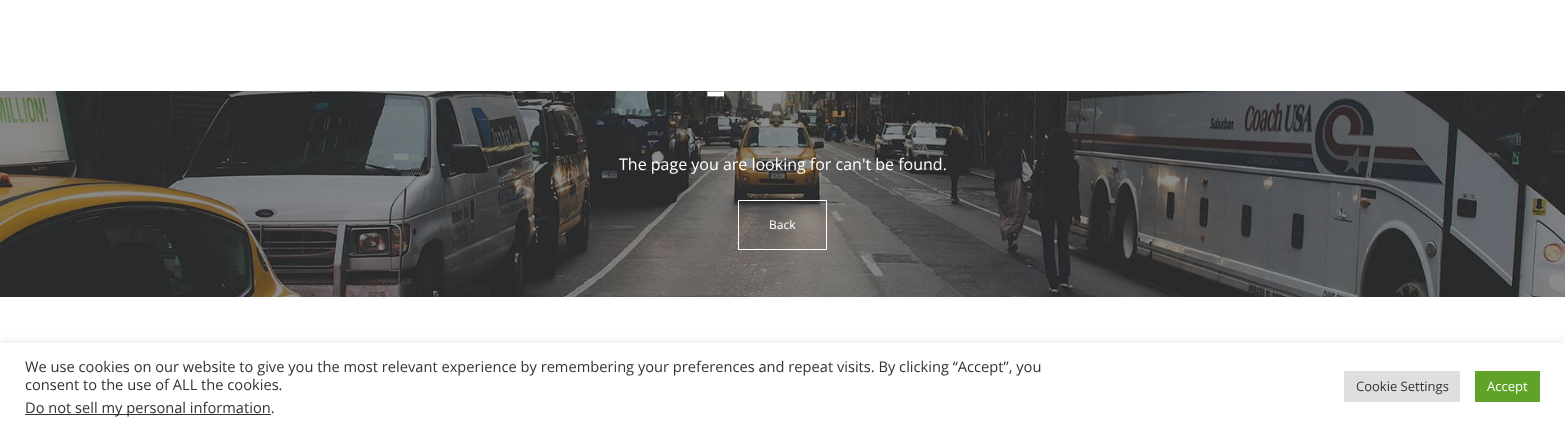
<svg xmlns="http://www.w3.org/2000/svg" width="1565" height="430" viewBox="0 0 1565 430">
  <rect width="100%" height="100%" fill="#fff"/>
  <image x="0" y="91" width="1565" height="206" href="img/1.png"/>
  <path d="M738.5 200.5h88v49H738.5z" fill="none" stroke="#fff"/>
  <path d="M0 342h1565v87H0z" fill="#acabab4d" filter="blur(5px)"/>
  <path d="M0 343h1565v87H0z" fill="#fff"/>
  <path d="M25 414h246v1H25z" fill="#333"/>
  <path d="M1344 371h116v31H1344z" fill="#dedfe0"/>
  <path d="M1475 371h65v31H1475z" fill="#61a229"/>
  <text x="705" y="109" font-family="Liberation Serif" font-size="64" fill="#fff">-</text>
  <text x="619" y="170" font-family="Open Sans" font-size="16" fill="#fff">The page you are looking for can't be found.</text>
  <text x="769" y="229" font-family="Open Sans" font-size="12" fill="#fff">Back</text>
  <g font-family="Open Sans" font-size="14.67" fill="#333">
    <text x="25" y="372">We use cookies on our website to give you the most relevant experience by remembering your preferences and repeat visits. By clicking “Accept”, you</text>
    <text x="25" y="390">consent to the use of ALL the cookies.</text>
    <text x="25" y="413">Do not sell my personal information.</text>
  </g>
  <text x="1356" y="391" font-family="Open Sans" font-size="13" fill="#333">Cookie Settings</text>
  <text x="1487" y="391" font-family="Open Sans" font-size="13" fill="#fff">Accept</text>
</svg>
